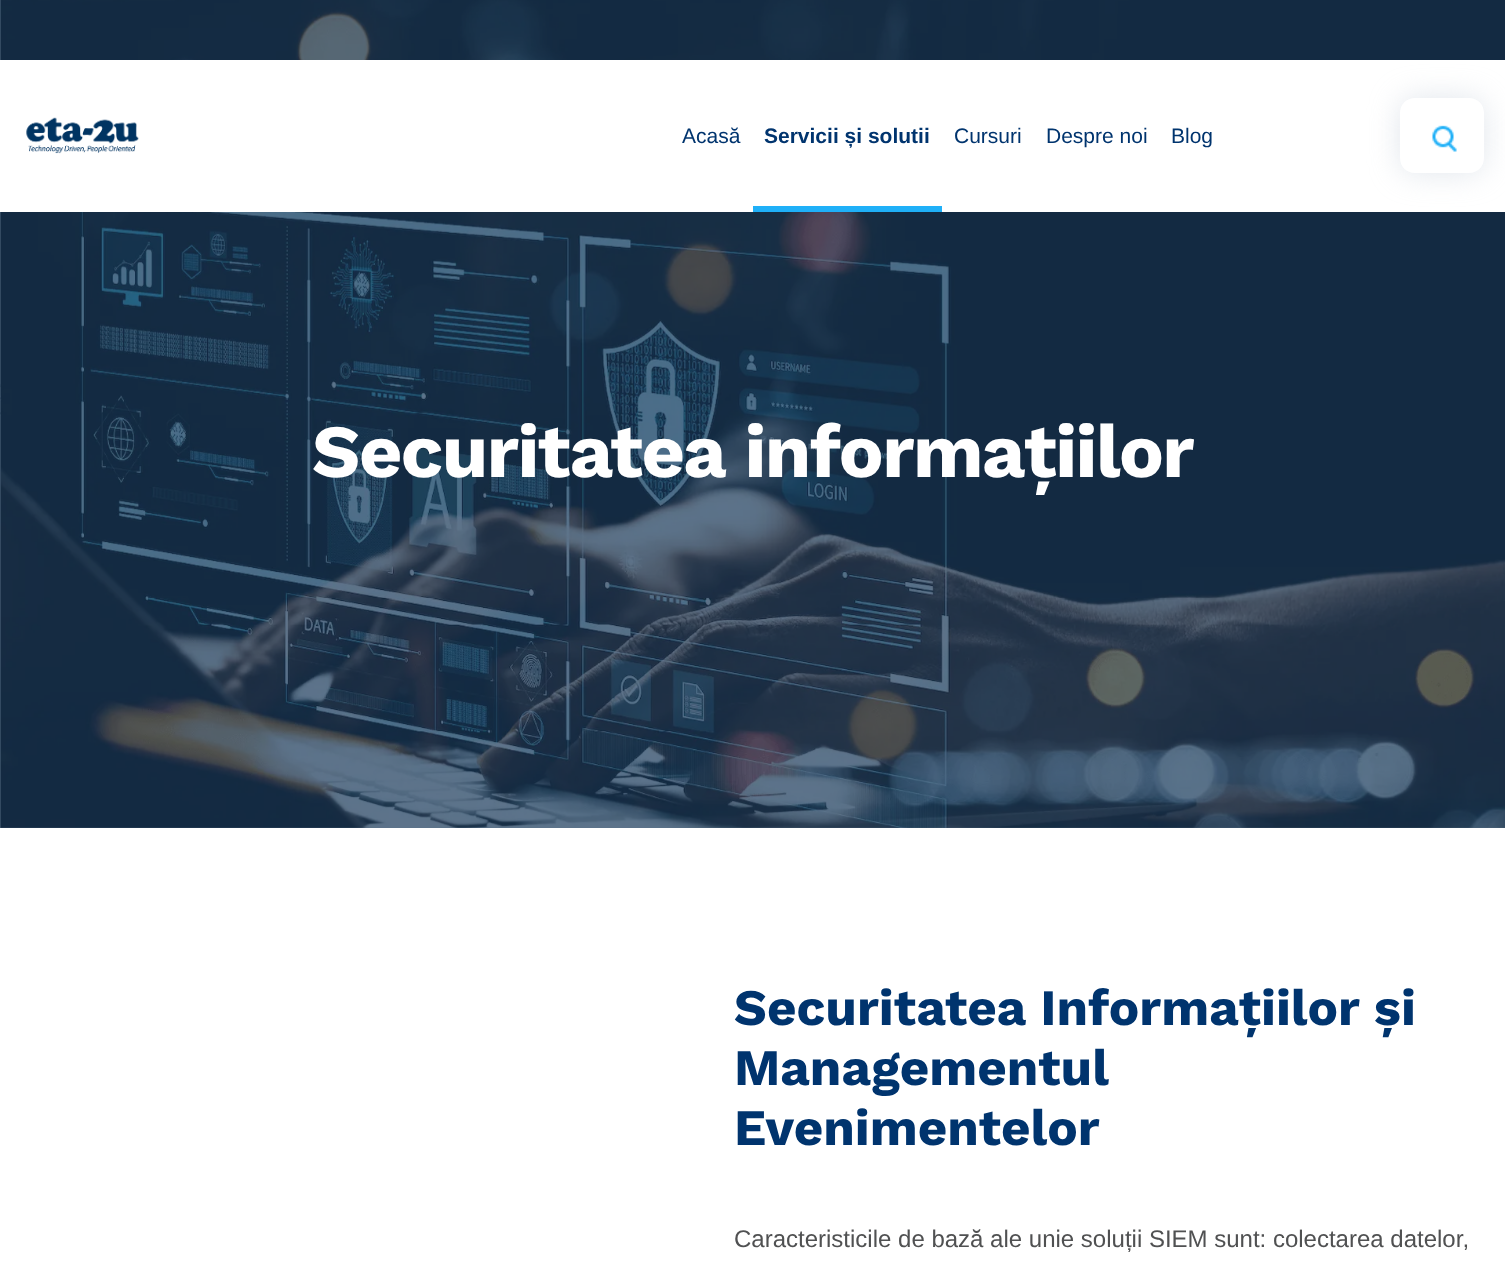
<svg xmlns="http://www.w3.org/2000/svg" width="1505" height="1276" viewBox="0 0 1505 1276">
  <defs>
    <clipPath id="clip1"><path d="M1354 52H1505V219H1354ZM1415 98H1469C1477.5 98 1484 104.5 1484 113V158C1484 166.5 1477.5 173 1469 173H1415C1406.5 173 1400 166.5 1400 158V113C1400 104.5 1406.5 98 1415 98Z" clip-rule="evenodd"/></clipPath>
  </defs>
  <rect width="100%" height="100%" fill="#fff"/>
  <path d="M0 0h1505v828H0z" fill="#5c738a"/>
  <image x="0" y="0" width="1505" height="828" href="img/3.png"/>
  <path d="M0 60h1505v152H0z" fill="#fff"/>
  <image x="26" y="117" width="113" height="37" href="img/1.png"/>
  <path d="M753 206h189v6H753z" fill="#1fb0f8"/>
  <g clip-path="url(#clip1)">
    <rect x="1400" y="98" width="84" height="75" rx="15" fill="#c4ceda80" filter="blur(15px)"/>
  </g>
  <image x="1432" y="125" width="25" height="27" href="img/2.png"/>
  <text x="682" y="143" font-family="Liberation Sans" font-size="21" fill="#00346e">Acasă</text>
  <text x="764" y="143" font-family="Liberation Sans" font-size="21" font-weight="bold" fill="#00346e">Servicii și solutii</text>
  <g font-family="Liberation Sans" font-size="21" fill="#00346e">
    <text x="954" y="143">Cursuri</text>
    <text x="1046" y="143">Despre noi</text>
    <text x="1171" y="143">Blog</text>
  </g>
  <text x="312" y="477" font-family="Work Sans" font-size="75" font-weight="bold" letter-spacing="-1.5" fill="#fff">Securitatea informațiilor</text>
  <g font-family="Work Sans" font-size="51" font-weight="bold" fill="#00346e">
    <text x="734" y="1025">Securitatea Informațiilor și</text>
    <text x="734" y="1085">Managementul</text>
    <text x="734" y="1145">Evenimentelor</text>
  </g>
  <text x="734" y="1247" font-family="Liberation Sans" font-size="24" fill="#505152">Caracteristicile de bază ale unie soluții SIEM sunt: colectarea datelor,</text>
</svg>
